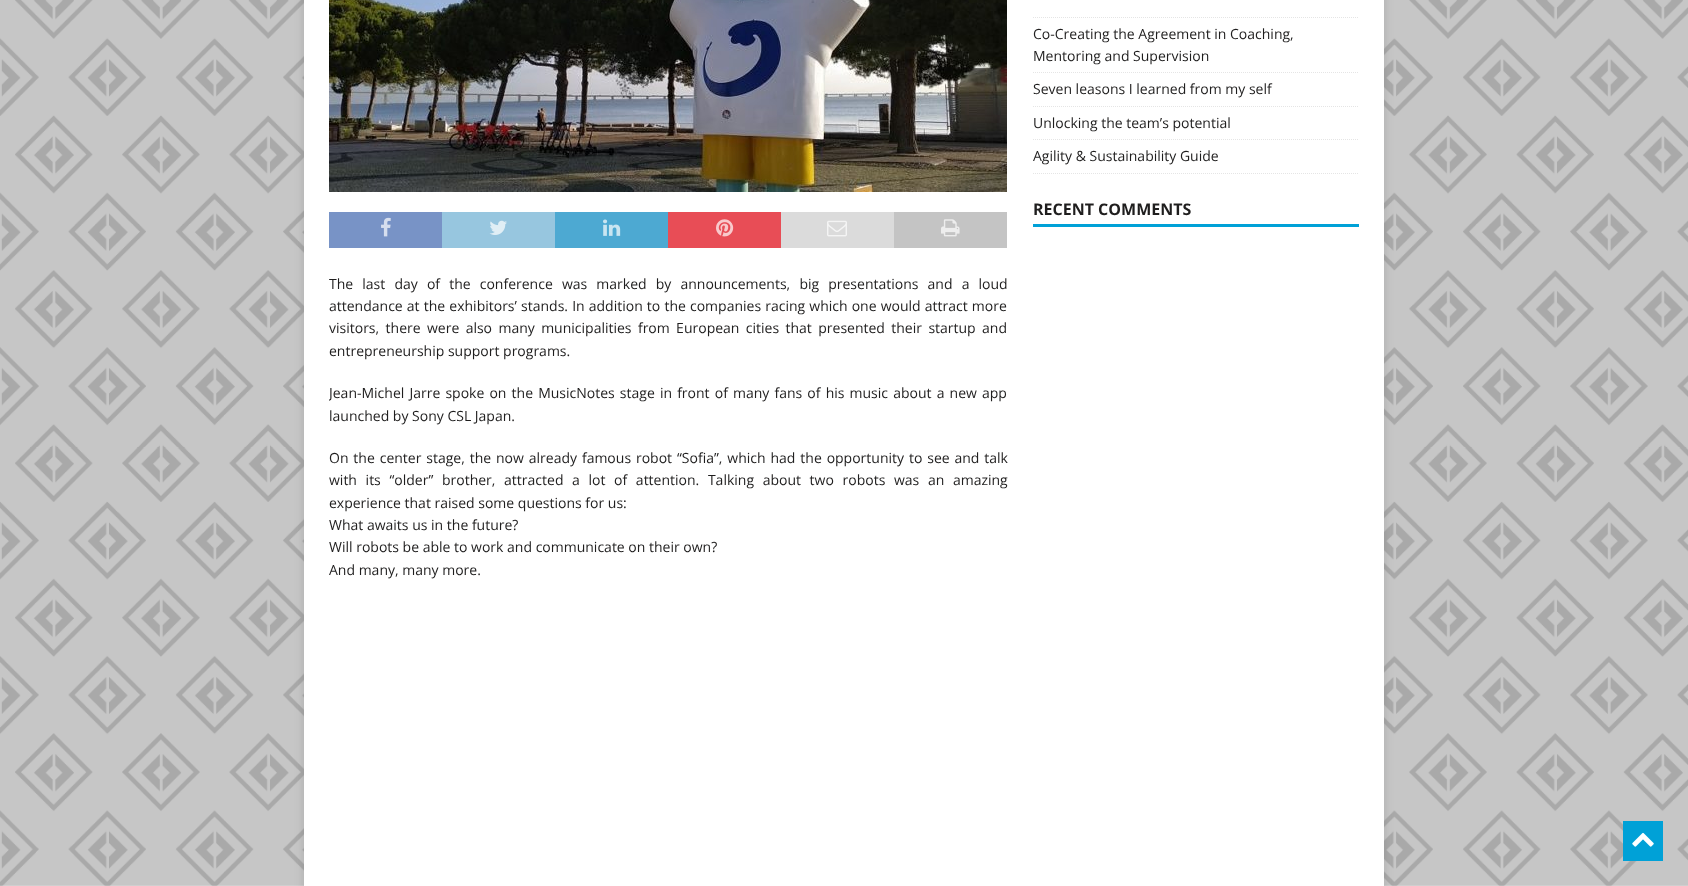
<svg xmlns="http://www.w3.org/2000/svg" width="1688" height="886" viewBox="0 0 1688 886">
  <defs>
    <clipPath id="clip1"><path d="M329 0h678v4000H329z"/></clipPath>
  </defs>
  <rect width="100%" height="100%" fill="#fff"/>
  <image x="0" y="0" width="1688" height="886" href="img/1.png"/>
  <path d="M304 -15h1080v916H304z" fill="#3232322b" filter="blur(5px)"/>
  <path d="M304 0h1080v886H304z" fill="#fff"/>
  <path d="M1033 17.5H1359" fill="none" stroke="#e5e5e5" stroke-dasharray="1 1"/>
  <path d="M1033 72.5H1359" fill="none" stroke="#e5e5e5" stroke-dasharray="1 1"/>
  <path d="M1033 106.5H1359" fill="none" stroke="#e5e5e5" stroke-dasharray="1 1"/>
  <path d="M1033 139.5H1359" fill="none" stroke="#e5e5e5" stroke-dasharray="1 1"/>
  <path d="M1033 173.5H1359" fill="none" stroke="#e5e5e5" stroke-dasharray="1 1"/>
  <path d="M1033 224h326v3H1033z" fill="#00a1d7"/>
  <image x="329" y="0" width="678" height="192" href="img/2.png"/>
  <path d="M329 212h113v36H329z" fill="#7893c6"/>
  <image x="381" y="217" width="10" height="20" href="img/3.png"/>
  <path d="M442 212h113v36H442z" fill="#97c6df"/>
  <image x="489" y="220" width="18" height="15" href="img/4.png"/>
  <path d="M555 212h113v36H555z" fill="#4da9d2"/>
  <image x="603" y="219" width="18" height="17" href="img/5.png"/>
  <path d="M668 212h113v36H668z" fill="#e84d56"/>
  <image x="716" y="219" width="18" height="18" href="img/6.png"/>
  <path d="M781 212h113v36H781z" fill="#dbdbdb"/>
  <image x="827" y="220" width="20" height="17" href="img/7.png"/>
  <path d="M894 212h113v36H894z" fill="#c4c4c4"/>
  <image x="941" y="219" width="19" height="18" href="img/8.png"/>
  <path d="M1623 821h40v40H1623z" fill="#00a1d7"/>
  <image x="1632" y="832" width="22" height="15" href="img/9.png"/>
  <g font-family="Open Sans" font-size="14" fill="#1f1e1e">
    <text x="1033" y="39">Co-Creating the Agreement in Coaching,</text>
    <text x="1033" y="61">Mentoring and Supervision</text>
    <text x="1033" y="94">Seven leasons I learned from my self</text>
    <text x="1033" y="128">Unlocking the team’s potential</text>
    <text x="1033" y="161">Agility &amp; Sustainability Guide</text>
  </g>
  <text x="1033" y="215" font-family="Open Sans" font-size="16" font-weight="bold" fill="#1f1e1e">RECENT COMMENTS</text>
  <g font-family="Open Sans" font-size="14" fill="#1f1e1e">
    <text x="329" y="289" word-spacing="5.5">The last day of the conference was marked by announcements, big presentations and a loud</text>
    <text x="329" y="311" word-spacing="0.5">attendance at the exhibitors’ stands. In addition to the companies racing which one would attract more</text>
    <text x="329" y="333" word-spacing="2.75">visitors, there were also many municipalities from European cities that presented their startup and</text>
    <text x="329" y="356">entrepreneurship support programs.</text>
  </g>
  <g clip-path="url(#clip1)">
    <text x="329" y="398" word-spacing="1.5" font-family="Open Sans" font-size="14" fill="#1f1e1e">Jean-Michel Jarre spoke on the MusicNotes stage in front of many fans of his music about a new app</text>
  </g>
  <g font-family="Open Sans" font-size="14" fill="#1f1e1e">
    <text x="329" y="421">launched by Sony CSL Japan.</text>
    <text x="329" y="463" word-spacing="1.25">On the center stage, the now already famous robot “Sofia”, which had the opportunity to see and talk</text>
    <text x="329" y="485" word-spacing="5">with its “older” brother, attracted a lot of attention. Talking about two robots was an amazing</text>
    <text x="329" y="508">experience that raised some questions for us:</text>
    <text x="329" y="530">What awaits us in the future?</text>
    <text x="329" y="552">Will robots be able to work and communicate on their own?</text>
    <text x="329" y="575">And many, many more.</text>
  </g>
</svg>
